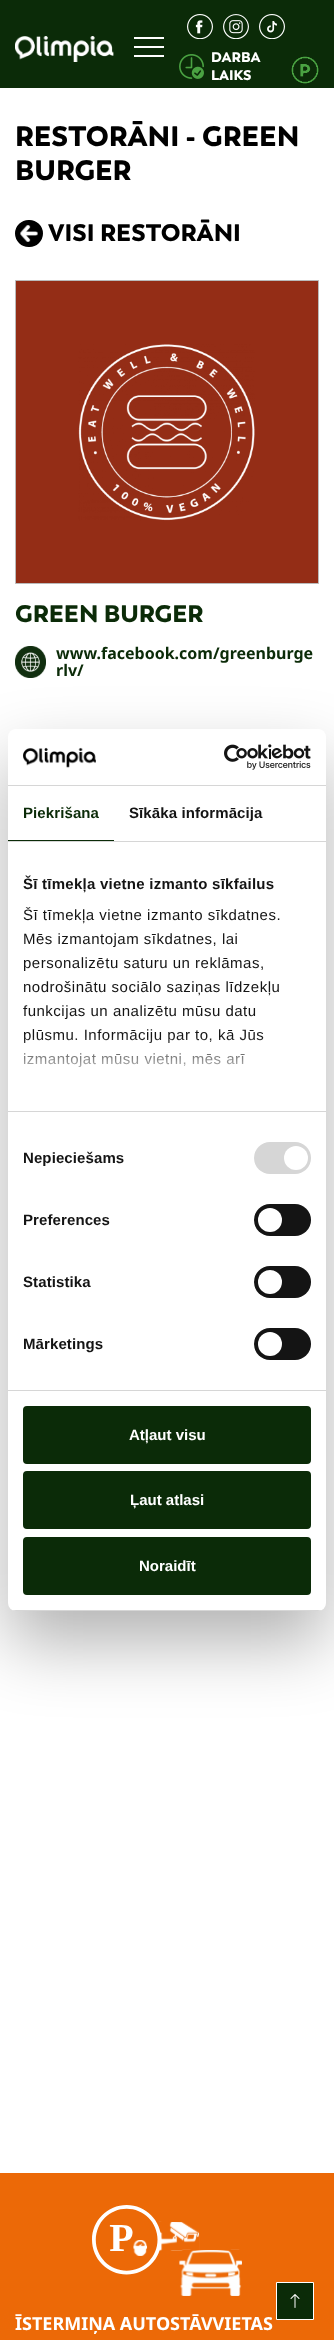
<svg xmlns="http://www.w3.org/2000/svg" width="334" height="2340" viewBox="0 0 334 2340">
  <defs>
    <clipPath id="clip1"><rect x="8" y="729" width="318" height="882" rx="8"/></clipPath>
    <linearGradient id="g1" gradientUnits="userSpaceOnUse" x1="161" y1="1111" x2="161" y2="1036"><stop offset="0" stop-color="#fff"/><stop offset="0.5" stop-color="#fff" stop-opacity="0.8"/><stop offset="1" stop-color="#fff" stop-opacity="0"/></linearGradient>
  </defs>
  <rect width="100%" height="100%" fill="#fff"/>
  <path d="M0 0h334v88H0z" fill="#0b2b08"/>
  <image x="15" y="36" width="99" height="26" href="img/1.png"/>
  <path d="M134 46h30v2H134z" fill="#fff"/>
  <path d="M134 37h30v2H134z" fill="#fff"/>
  <path d="M134 55h30v2H134z" fill="#fff"/>
  <image x="187" y="14" width="26" height="25" href="img/2.png"/>
  <image x="223" y="14" width="26" height="25" href="img/3.png"/>
  <image x="259" y="14" width="26" height="25" href="img/4.png"/>
  <image x="179" y="54" width="25" height="25" href="img/5.png"/>
  <image x="291" y="56" width="28" height="28" href="img/6.png"/>
  <image x="15" y="220" width="28" height="27" href="img/7.png"/>
  <path d="M15.5 280.5h303v303H15.5z" fill="#942d16" stroke="#bababa"/>
  <image x="78" y="344" width="177" height="177" href="img/8.png"/>
  <image x="15" y="646" width="31" height="32" href="img/9.png"/>
  <path d="M0 2173h334v167H0z" fill="#ec6907"/>
  <path d="M276.5 2282.5h37v37H276.5z" fill="#0b2b08" stroke="#fff"/>
  <image x="290" y="2294" width="10" height="14" href="img/10.png"/>
  <image x="92" y="2205" width="150" height="91" href="img/11.png"/>
  <rect x="8" y="761" width="318" height="882" rx="8" fill="#0000004d" filter="blur(34px)"/>
  <rect x="8" y="729" width="318" height="882" rx="8" fill="#fff"/>
  <path d="M8 785h318v1H8z" fill="#d6d6d6"/>
  <image x="23" y="747" width="73" height="21" href="img/12.png"/>
  <image x="224" y="744" width="87" height="26" href="img/13.png"/>
  <path d="M8 841h318v1H8z" fill="#d6d6d6"/>
  <path d="M8 840h106v1H8z" fill="#0b2b08"/>
  <path d="M8 1111h318v1H8z" fill="#d6d6d6"/>
  <path d="M8 1390h318v1H8z" fill="#d6d6d6"/>
  <rect x="254" y="1142" width="57" height="32" rx="16" fill="#d6d6d6"/>
  <circle cx="296" cy="1158" r="12" fill="#fff"/>
  <rect x="254" y="1204" width="57" height="32" rx="16" fill="#141414"/>
  <circle cx="270" cy="1220" r="12" fill="#fff"/>
  <rect x="254" y="1266" width="57" height="32" rx="16" fill="#141414"/>
  <circle cx="270" cy="1282" r="12" fill="#fff"/>
  <rect x="254" y="1328" width="57" height="32" rx="16" fill="#141414"/>
  <circle cx="270" cy="1344" r="12" fill="#fff"/>
  <g clip-path="url(#clip1)">
    <path d="M8 1610h318v1H8z" fill="#d6d6d6"/>
  </g>
  <rect x="24" y="1407" width="286" height="56" rx="3" fill="#0b2b08" stroke="#0b2b08" stroke-width="2"/>
  <rect x="24" y="1472" width="286" height="56" rx="3" fill="#0b2b08" stroke="#0b2b08" stroke-width="2"/>
  <rect x="24" y="1538" width="286" height="56" rx="3" fill="#0b2b08" stroke="#0b2b08" stroke-width="2"/>
  <g font-family="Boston" font-size="14" font-weight="900" fill="#fff">
    <text x="211" y="62">DARBA</text>
    <text x="211" y="80">LAIKS</text>
  </g>
  <g font-family="Boston" font-size="28" font-weight="900" fill="#000">
    <text x="15" y="146">RESTORĀNI - GREEN</text>
    <text x="15" y="180">BURGER</text>
  </g>
  <text x="48" y="241" font-family="Boston" font-size="24" font-weight="900" fill="#000">VISI RESTORĀNI</text>
  <text x="15" y="622" font-family="Boston" font-size="24" font-weight="900" fill="#0b2b08">GREEN BURGER</text>
  <g font-family="Noto Sans" font-size="16" font-weight="bold" fill="#0b2b08">
    <text x="56" y="659">www.facebook.com/greenburge</text>
    <text x="56" y="676">rlv/</text>
  </g>
  <text x="15" y="2330" font-family="Noto Sans" font-size="18" font-weight="bold" fill="#fff">ĪSTERMIŅA AUTOSTĀVVIETAS</text>
  <text x="23" y="818" font-family="Liberation Sans" font-size="15" font-weight="bold" letter-spacing="0.1" fill="#0b2b08">Piekrišana</text>
  <text x="129" y="818" font-family="Liberation Sans" font-size="15" font-weight="bold" letter-spacing="0.1" fill="#141414">Sīkāka informācija</text>
  <text x="23" y="889" font-family="Liberation Sans" font-size="15" font-weight="bold" letter-spacing="0.25" fill="#141414">Šī tīmekļa vietne izmanto sīkfailus</text>
  <g font-family="Liberation Sans" font-size="15" letter-spacing="0.5" fill="#141414">
    <text x="23" y="920">Šī tīmekļa vietne izmanto sīkdatnes.</text>
    <text x="23" y="944">Mēs izmantojam sīkdatnes, lai</text>
    <text x="23" y="968">personalizētu saturu un reklāmas,</text>
    <text x="23" y="992">nodrošinātu sociālo saziņas līdzekļu</text>
    <text x="23" y="1016">funkcijas un analizētu mūsu datu</text>
    <text x="23" y="1040">plūsmu. Informāciju par to, kā Jūs</text>
    <text x="23" y="1064">izmantojat mūsu vietni, mēs arī</text>
  </g>
  <path d="M24 1037h239v31H24z" fill="url(#g1)"/>
  <g font-family="Liberation Sans" font-size="15" font-weight="bold" letter-spacing="0.1" fill="#141414">
    <text x="23" y="1163">Nepieciešams</text>
    <text x="23" y="1225">Preferences</text>
    <text x="23" y="1287">Statistika</text>
    <text x="23" y="1349">Mārketings</text>
  </g>
  <g font-family="Liberation Sans" font-size="15" font-weight="bold" fill="#fff">
    <text x="129" y="1440">Atļaut visu</text>
    <text x="130" y="1505">Ļaut atlasi</text>
    <text x="139" y="1571">Noraidīt</text>
  </g>
</svg>
